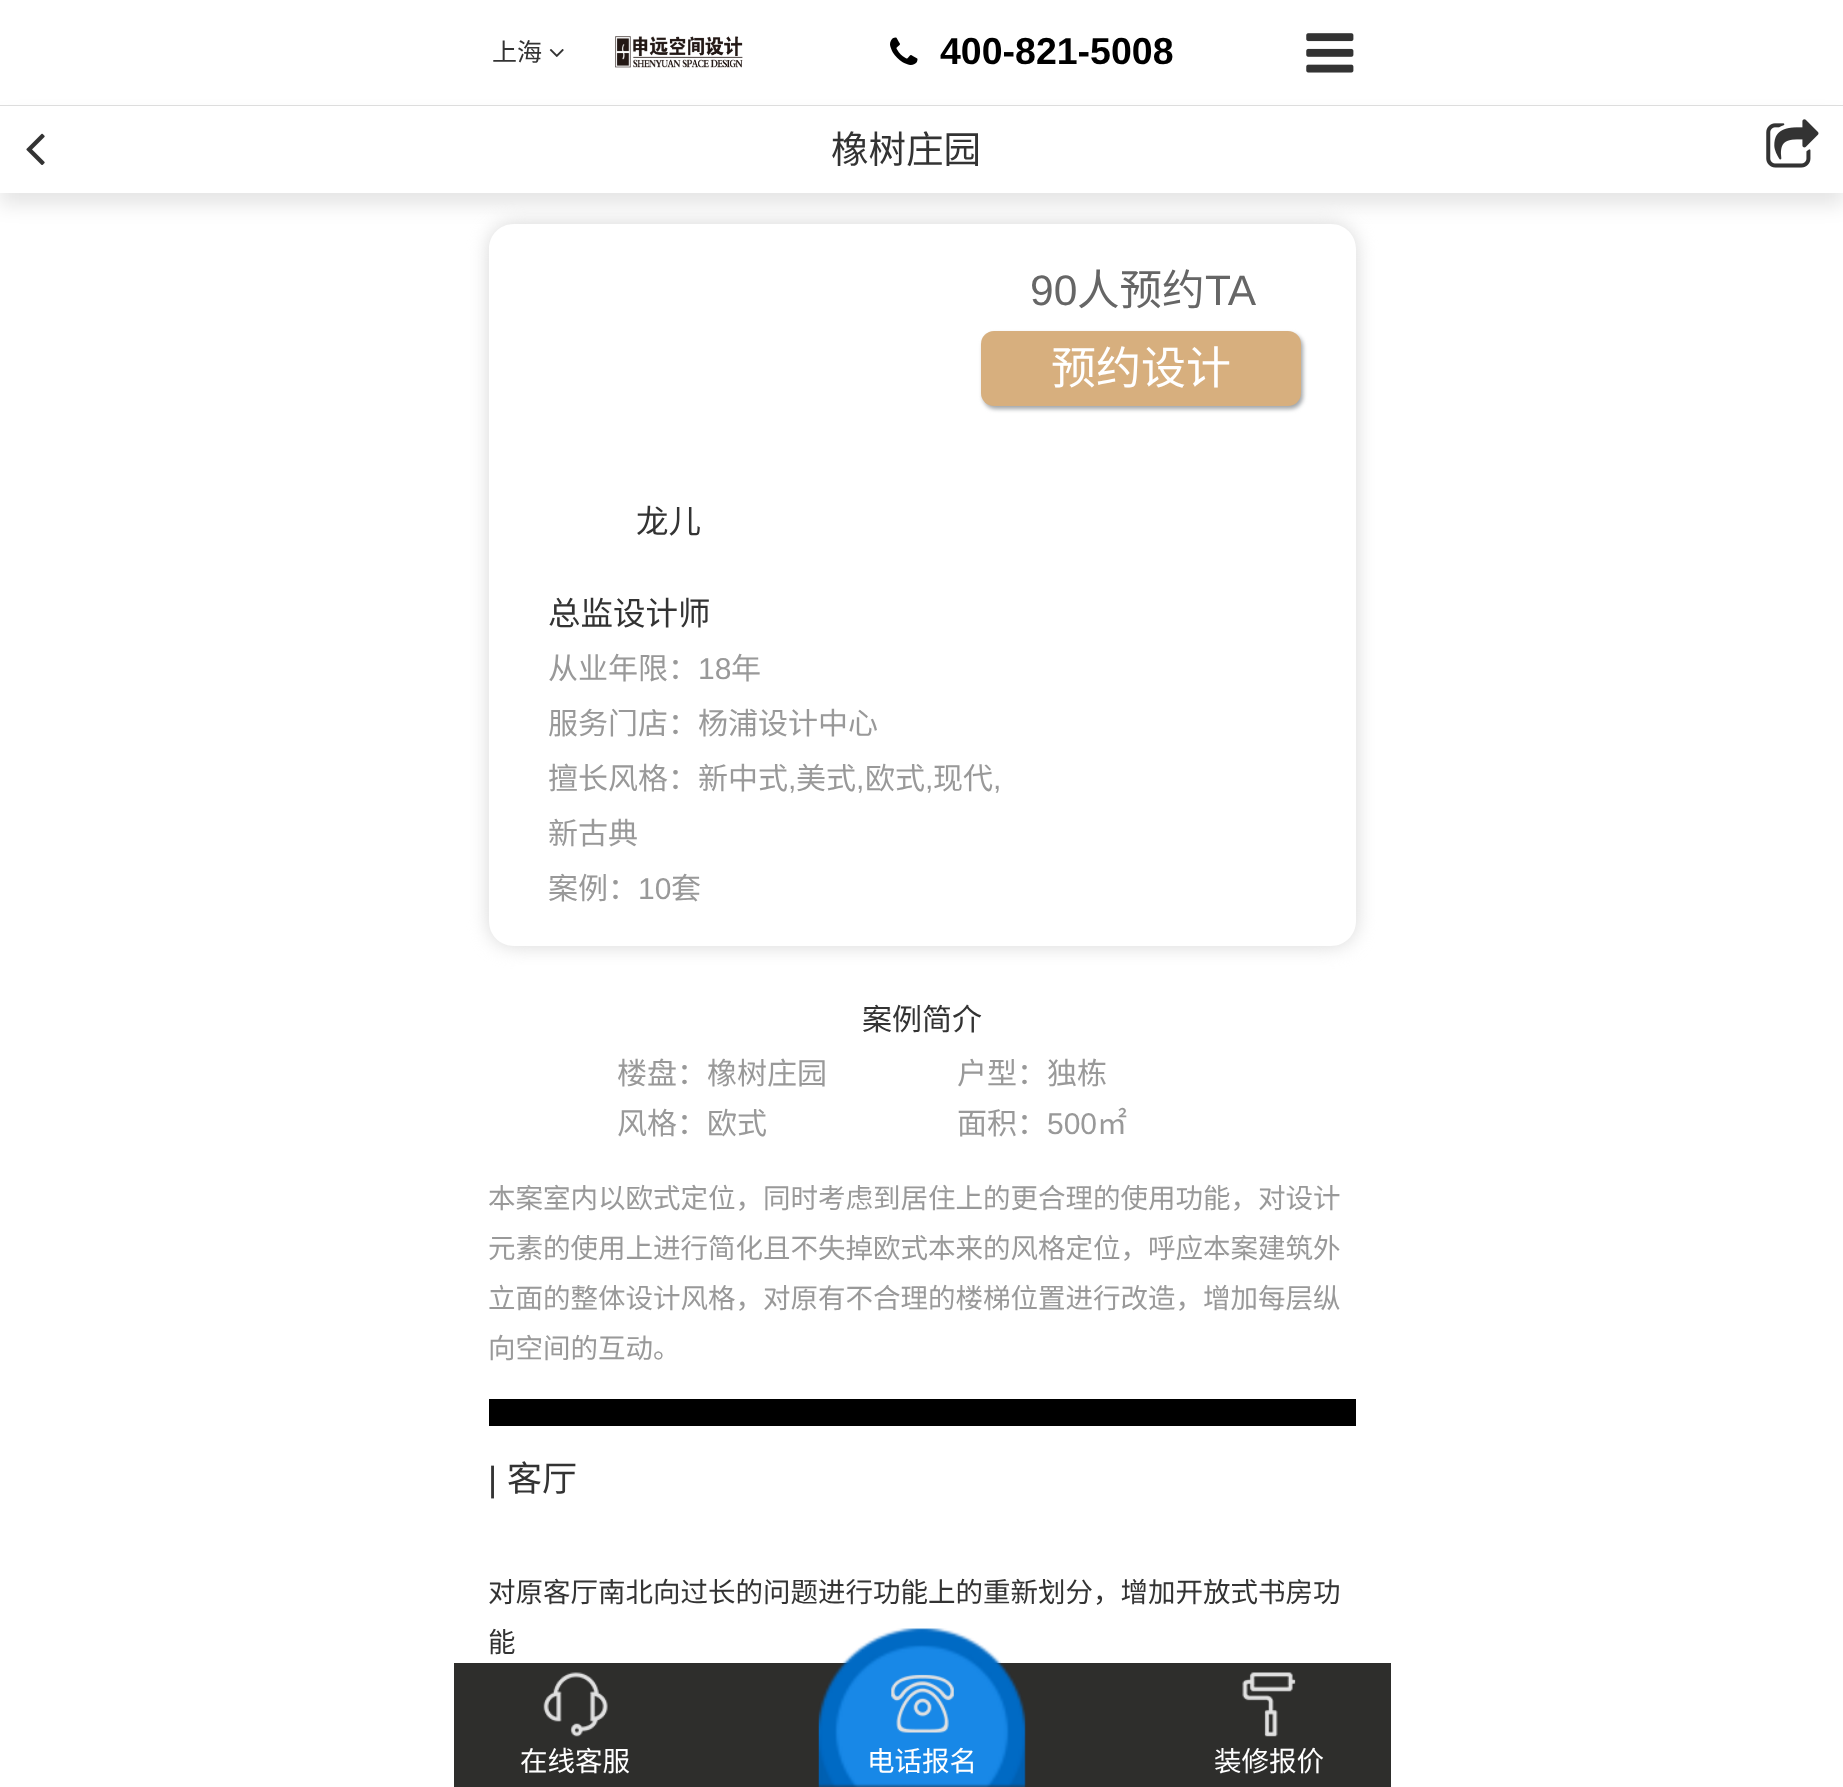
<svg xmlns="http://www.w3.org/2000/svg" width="1843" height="1787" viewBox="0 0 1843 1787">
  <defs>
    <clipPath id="clip1"><path d="M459 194H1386V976H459ZM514 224H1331C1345 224 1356 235 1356 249V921C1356 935 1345 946 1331 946H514C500 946 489 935 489 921V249C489 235 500 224 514 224Z" clip-rule="evenodd"/></clipPath>
  </defs>
  <rect width="100%" height="100%" fill="#fff"/>
  <image x="549" y="49" width="15" height="8" href="img/1.png"/>
  <image x="615" y="36" width="128" height="32" href="img/2.png"/>
  <image x="890" y="37" width="28" height="28" href="img/3.png"/>
  <image x="1306" y="33" width="48" height="40" href="img/4.png"/>
  <path d="M0 118h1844v87H0z" fill="#0000001a" filter="blur(9.5px)"/>
  <path d="M0 106h1843v87H0z" fill="#fff"/>
  <path d="M0 105h1843v1H0z" fill="#ddd"/>
  <image x="26" y="133" width="19" height="32" href="img/5.png"/>
  <image x="1766" y="119" width="53" height="49" href="img/6.png"/>
  <g clip-path="url(#clip1)">
    <rect x="489" y="224" width="867" height="722" rx="25" fill="#d7d7d7" filter="blur(9.5px)"/>
  </g>
  <rect x="983" y="334" width="320" height="75" rx="13" fill="#a1a5a8" filter="blur(2px)"/>
  <rect x="981" y="331" width="320" height="75" rx="13" fill="#d7af7e"/>
  <path d="M489 1399h867v27H489z" fill="#000"/>
  <path d="M454 1663h937v124H454z" fill="#2e2e2c"/>
  <image x="543" y="1672" width="65" height="65" href="img/7.png"/>
  <image x="818" y="1628" width="208" height="159" href="img/8.png"/>
  <image x="891" y="1674" width="63" height="59" href="img/9.png"/>
  <image x="1242" y="1672" width="54" height="65" href="img/10.png"/>
  <text x="492" y="61" font-family="Noto Sans CJK SC" font-size="25" fill="#333">上海</text>
  <text x="940" y="64" font-family="Liberation Sans" font-size="37.5" font-weight="bold" fill="#000">400-821-5008</text>
  <text x="831" y="163" font-family="Noto Sans CJK SC" font-size="37.5" fill="#333">橡树庄园</text>
  <text x="1030" y="305" font-family="Liberation Sans" font-size="42.5" fill="#666">90</text>
  <text x="1077" y="305" font-family="Noto Sans CJK SC" font-size="42.5" fill="#666">人预约</text>
  <text x="1205" y="305" font-family="Liberation Sans" font-size="42.5" fill="#666">TA</text>
  <text x="1051" y="384" font-family="Noto Sans CJK SC" font-size="45" fill="#fff">预约设计</text>
  <g font-family="Noto Sans CJK SC" font-size="32.5" fill="#333">
    <text x="636" y="533">龙儿</text>
    <text x="548" y="625">总监设计师</text>
  </g>
  <text x="548" y="679" font-family="Noto Sans CJK SC" font-size="30" fill="#999">从业年限：</text>
  <text x="698" y="679" font-family="Liberation Sans" font-size="30" fill="#999">18</text>
  <g font-family="Noto Sans CJK SC" font-size="30" fill="#999">
    <text x="731" y="679">年</text>
    <text x="548" y="734">服务门店：杨浦设计中心</text>
    <text x="548" y="789">擅长风格：新中式</text>
  </g>
  <text x="788" y="789" font-family="Liberation Sans" font-size="30" fill="#999">,</text>
  <text x="796" y="789" font-family="Noto Sans CJK SC" font-size="30" fill="#999">美式</text>
  <text x="856" y="789" font-family="Liberation Sans" font-size="30" fill="#999">,</text>
  <text x="865" y="789" font-family="Noto Sans CJK SC" font-size="30" fill="#999">欧式</text>
  <text x="925" y="789" font-family="Liberation Sans" font-size="30" fill="#999">,</text>
  <text x="933" y="789" font-family="Noto Sans CJK SC" font-size="30" fill="#999">现代</text>
  <text x="993" y="789" font-family="Liberation Sans" font-size="30" fill="#999">,</text>
  <g font-family="Noto Sans CJK SC" font-size="30" fill="#999">
    <text x="548" y="844">新古典</text>
    <text x="548" y="899">案例：</text>
  </g>
  <text x="638" y="899" font-family="Liberation Sans" font-size="30" fill="#999">10</text>
  <text x="671" y="899" font-family="Noto Sans CJK SC" font-size="30" fill="#999">套</text>
  <text x="862" y="1030" font-family="Noto Sans CJK SC" font-size="30" fill="#333">案例简介</text>
  <g font-family="Noto Sans CJK SC" font-size="30" fill="#999">
    <text x="617" y="1084">楼盘：橡树庄园</text>
    <text x="957" y="1084">户型：独栋</text>
    <text x="617" y="1134">风格：欧式</text>
    <text x="957" y="1134">面积：</text>
  </g>
  <text x="1047" y="1134" font-family="Liberation Sans" font-size="30" fill="#999">500</text>
  <text x="1097" y="1134" font-family="Noto Sans CJK SC" font-size="30" fill="#999">㎡</text>
  <g font-family="Noto Sans CJK SC" font-size="27.5" fill="#999">
    <text x="488" y="1208">本案室内以欧式定位，同时考虑到居住上的更合理的使用功能，对设计</text>
    <text x="488" y="1258">元素的使用上进行简化且不失掉欧式本来的风格定位，呼应本案建筑外</text>
    <text x="488" y="1308">立面的整体设计风格，对原有不合理的楼梯位置进行改造，增加每层纵</text>
    <text x="488" y="1358">向空间的互动。</text>
  </g>
  <text x="488" y="1491" font-family="Liberation Sans" font-size="35" fill="#333">|</text>
  <text x="507" y="1491" font-family="Noto Sans CJK SC" font-size="35" fill="#333">客厅</text>
  <g font-family="Noto Sans CJK SC" font-size="27.5" fill="#333">
    <text x="488" y="1602">对原客厅南北向过长的问题进行功能上的重新划分，增加开放式书房功</text>
    <text x="488" y="1652">能</text>
  </g>
  <g font-family="Noto Sans CJK SC" font-size="27.5" fill="#fff">
    <text x="520" y="1771">在线客服</text>
    <text x="867" y="1771">电话报名</text>
    <text x="1214" y="1771">装修报价</text>
  </g>
</svg>
